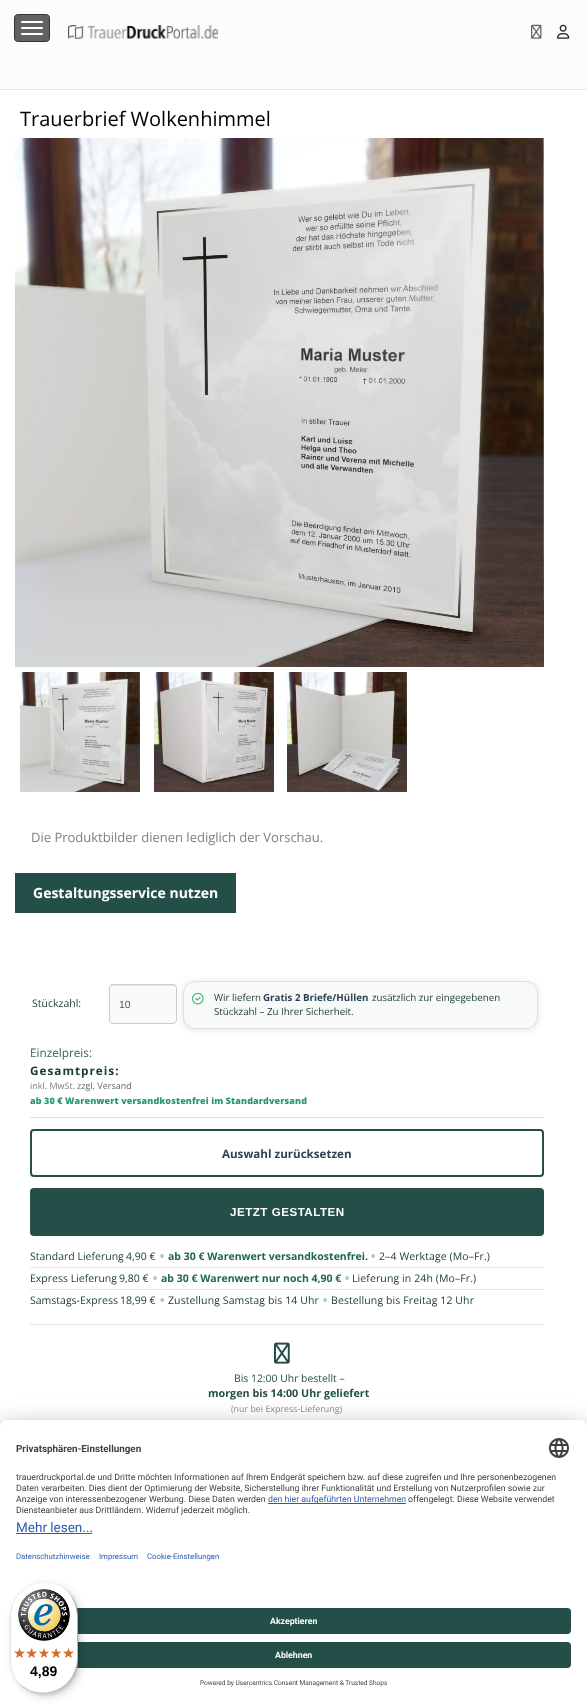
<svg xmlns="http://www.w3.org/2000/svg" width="587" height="1704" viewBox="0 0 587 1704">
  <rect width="100%" height="100%" fill="#fff"/>
  <path d="M0 0h587v89H0z" fill="#fcfcfc"/>
  <path d="M0 89h587v1H0z" fill="#e5e5e5"/>
  <rect x="14.5" y="14.5" width="35" height="27" rx="3.5" fill="#626262" stroke="#333"/>
  <rect x="21" y="21" width="22" height="2" rx="1" fill="#fff"/>
  <rect x="21" y="27" width="22" height="2" rx="1" fill="#fff"/>
  <rect x="21" y="33" width="22" height="2" rx="1" fill="#fff"/>
  <image x="68" y="25" width="150" height="14" href="img/1.png"/>
  <image x="531" y="24" width="11" height="15" href="img/2.png"/>
  <image x="557" y="24" width="13" height="15" href="img/3.png"/>
  <image x="15" y="138" width="529" height="529" href="img/4.png"/>
  <image x="20" y="672" width="120" height="120" href="img/5.png"/>
  <image x="154" y="672" width="120" height="120" href="img/6.png"/>
  <image x="287" y="672" width="120" height="120" href="img/7.png"/>
  <path d="M15 873h221v40H15z" fill="#244f48"/>
  <rect x="183" y="982" width="355" height="48" rx="12" fill="#20403221" filter="blur(3.5px)"/>
  <rect x="109" y="984" width="68" height="40" rx="4" fill="#f8fafb"/>
  <path d="M113 986H173C175 986 176 987 176 989C176 982 167 985 163 985H123C119 985 110 982 110 989C110 987 111 986 113 986Z" fill="#e5e7e8"/>
  <rect x="109.5" y="984.5" width="67" height="39" rx="3.5" fill="none" stroke="#ccc"/>
  <rect x="183.5" y="981.5" width="354" height="47" rx="11.5" fill="#f7faf8" stroke="#d8e3dd"/>
  <image x="192" y="992" width="12" height="13" href="img/8.png"/>
  <path d="M30 1117h514v1H30z" fill="#d4e4df"/>
  <rect x="31" y="1130" width="512" height="46" rx="3" fill="none" stroke="#244f48" stroke-width="2"/>
  <rect x="30" y="1188" width="514" height="48" rx="4" fill="#244f48"/>
  <path d="M30 1267h514v1H30z" fill="#e3eae7"/>
  <path d="M30 1289h514v1H30z" fill="#e3eae7"/>
  <path d="M30 1324h514v1H30z" fill="#e2e6e8"/>
  <image x="274" y="1342" width="16" height="22" href="img/9.png"/>
  <rect y="1440" width="587" height="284" rx="8" fill="#0000004d" filter="blur(14px)"/>
  <rect y="1425" width="587" height="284" rx="8" fill="#00000038" filter="blur(13px)"/>
  <path d="M8 1420H579C583.5 1420 587 1423.5 587 1428V1704H0V1428C0 1423.5 3.5 1420 8 1420Z" fill="#fff"/>
  <path d="M8 1420H579C583.5 1420 587 1423.5 587 1428V1596H0V1428C0 1423.5 3.5 1420 8 1420Z" fill="#fff"/>
  <image x="549" y="1438" width="20" height="20" href="img/10.png"/>
  <path d="M268 1503h138v1H268z" fill="#2a5db0"/>
  <path d="M16 1533h76v1H16z" fill="#2a5db0"/>
  <rect x="16" y="1608" width="555" height="26" rx="4" fill="#244f48"/>
  <rect x="16" y="1642" width="555" height="26" rx="4" fill="#244f48"/>
  <rect x="13" y="1585" width="68" height="112" rx="34" fill="#00000026" filter="blur(4px)"/>
  <rect x="11" y="1583" width="68" height="112" rx="34" fill="#00000026" filter="blur(1px)"/>
  <rect x="10" y="1582" width="68" height="112" rx="34" fill="#fff"/>
  <path d="M45 1583C53 1583 61 1586 67 1591C50 1576 22 1582 13 1603C8 1613 10 1627 10 1638C10 1653 7 1670 19 1683C14 1677 11 1669 11 1661V1617C11 1598 26 1583 45 1583Z" fill="#e5e5e5"/>
  <path d="M21 1685C38 1700 66 1694 75 1673C80 1663 78 1649 78 1638C78 1623 81 1606 69 1593C79 1606 77 1622 77 1637C77 1648 79 1662 74 1672C66 1693 38 1699 21 1685Z" fill="#00000033"/>
  <path d="M17 1681C24 1689 33 1694 44 1694C63 1694 78 1679 78 1660V1616C78 1605 73 1596 65 1589C72 1596 77 1605 77 1615V1659C77 1678 62 1693 43 1693C33 1693 24 1688 17 1681Z" fill="#32323233"/>
  <path d="M44 1582C63 1582 78 1597 78 1616C78 1597 62 1582 44 1582ZM78 1660C78 1678 62 1694 44 1694C63 1694 78 1679 78 1660Z" fill="#ffffff4d" fill-rule="evenodd"/>
  <image x="18" y="1589" width="52" height="52" href="img/11.png"/>
  <image x="14" y="1648" width="11" height="10" href="img/12.png"/>
  <image x="27" y="1648" width="10" height="10" href="img/13.png"/>
  <image x="39" y="1648" width="10" height="10" href="img/14.png"/>
  <image x="51" y="1648" width="11" height="10" href="img/15.png"/>
  <image x="63" y="1648" width="11" height="10" href="img/15.png"/>
  <image x="14" y="1648" width="11" height="10" href="img/16.png"/>
  <image x="26" y="1648" width="11" height="10" href="img/17.png"/>
  <image x="39" y="1648" width="10" height="10" href="img/18.png"/>
  <image x="51" y="1648" width="10" height="10" href="img/19.png"/>
  <image x="63" y="1648" width="10" height="10" href="img/20.png"/>
  <text x="20" y="126" font-family="Open Sans" font-size="20" fill="#000">Trauerbrief Wolkenhimmel</text>
  <text x="31" y="842" font-family="Open Sans" font-size="13" fill="#808080">Die Produktbilder dienen lediglich der Vorschau.</text>
  <text x="33" y="898" font-family="Open Sans" font-size="14" font-weight="bold" fill="#fff">Gestaltungsservice nutzen</text>
  <text x="32" y="1007" font-family="Open Sans" font-size="10.5" fill="#204032">Stückzahl:</text>
  <text x="119" y="1008" font-family="Liberation Sans" font-size="10.5" fill="#555">10</text>
  <text x="214" y="1001" font-family="Open Sans" font-size="9.75" fill="#204032">Wir liefern</text>
  <text x="263" y="1001" font-family="Open Sans" font-size="9.75" font-weight="bold" fill="#2e4357">Gratis 2 Briefe/Hüllen</text>
  <g font-family="Open Sans" font-size="9.75" fill="#204032">
    <text x="372" y="1001">zusätzlich zur eingegebenen</text>
    <text x="214" y="1015">Stückzahl – Zu Ihrer Sicherheit.</text>
  </g>
  <text x="30" y="1057" font-family="Open Sans" font-size="11.75" fill="#3a6355">Einzelpreis:</text>
  <text x="30" y="1075" font-family="Open Sans" font-size="11.75" font-weight="bold" letter-spacing="1" fill="#193c2b">Gesamtpreis:</text>
  <text x="30" y="1089" font-family="Open Sans" font-size="9" fill="#808080">inkl. MwSt.</text>
  <text x="77" y="1089" font-family="Open Sans" font-size="9" fill="#666">zzgl. Versand</text>
  <text x="30" y="1104" font-family="Open Sans" font-size="9" font-weight="800" letter-spacing="0.1" fill="#29986a">ab 30 € Warenwert versandkostenfrei im Standardversand</text>
  <text x="222" y="1158" font-family="Open Sans" font-size="11.6" font-weight="bold" fill="#2e4357">Auswahl zurücksetzen</text>
  <text x="230" y="1216" font-family="Liberation Sans" font-size="11.6" font-weight="bold" letter-spacing="0.5" fill="#fff">JETZT GESTALTEN</text>
  <g font-family="Open Sans" font-size="10.5" fill="#193c2b">
    <text x="30" y="1260">Standard Lieferung</text>
    <text x="126" y="1260">4,90 €</text>
  </g>
  <text x="160" y="1260" font-family="Open Sans" font-size="11" font-weight="800" fill="#b3c8bf">•</text>
  <text x="168" y="1260" font-family="Open Sans" font-size="10.5" font-weight="bold" fill="#206452">ab 30 € Warenwert versandkostenfrei.</text>
  <text x="371" y="1260" font-family="Open Sans" font-size="11" font-weight="800" fill="#b3c8bf">•</text>
  <text x="379" y="1260" font-family="Open Sans" font-size="10.5" letter-spacing="0.1" fill="#193c2b">2–4 Werktage (Mo–Fr.)</text>
  <g font-family="Open Sans" font-size="10.5" fill="#193c2b">
    <text x="30" y="1282">Express Lieferung</text>
    <text x="119" y="1282">9,80 €</text>
  </g>
  <text x="153" y="1282" font-family="Open Sans" font-size="11" font-weight="800" fill="#b3c8bf">•</text>
  <text x="161" y="1282" font-family="Open Sans" font-size="10.5" font-weight="bold" fill="#206452">ab 30 € Warenwert nur noch 4,90 €</text>
  <text x="345" y="1282" font-family="Open Sans" font-size="11" font-weight="800" fill="#b3c8bf">•</text>
  <text x="352" y="1282" font-family="Open Sans" font-size="10.5" letter-spacing="0.1" fill="#193c2b">Lieferung in 24h (Mo–Fr.)</text>
  <g font-family="Open Sans" font-size="10.5" fill="#193c2b">
    <text x="30" y="1304">Samstags-Express</text>
    <text x="120" y="1304">18,99 €</text>
  </g>
  <text x="160" y="1304" font-family="Open Sans" font-size="11" font-weight="800" fill="#b3c8bf">•</text>
  <text x="168" y="1304" font-family="Open Sans" font-size="10.5" letter-spacing="0.1" fill="#193c2b">Zustellung Samstag bis 14 Uhr</text>
  <text x="323" y="1304" font-family="Open Sans" font-size="11" font-weight="800" fill="#b3c8bf">•</text>
  <text x="331" y="1304" font-family="Open Sans" font-size="10.5" letter-spacing="0.1" fill="#193c2b">Bestellung bis Freitag 12 Uhr</text>
  <text x="234" y="1382" font-family="Open Sans" font-size="10.4" fill="#244f48">Bis 12:00 Uhr bestellt –</text>
  <text x="208" y="1397" font-family="Open Sans" font-size="10.75" font-weight="bold" fill="#244f48">morgen bis 14:00 Uhr geliefert</text>
  <text x="231" y="1412" font-family="Open Sans" font-size="8.9" fill="#888">(nur bei Express-Lieferung)</text>
  <text x="16" y="1452" font-family="Roboto" font-size="9.8" font-weight="bold" fill="#3f3f3f">Privatsphären-Einstellungen</text>
  <g font-family="Roboto" font-size="8.75" fill="#3f3f3f">
    <text x="16" y="1480">trauerdruckportal.de und Dritte möchten Informationen auf Ihrem Endgerät speichern bzw. auf diese zugreifen und Ihre personenbezogenen</text>
    <text x="16" y="1491">Daten verarbeiten. Dies dient der Optimierung der Website, Sicherstellung ihrer Funktionalität und Erstellung von Nutzerprofilen sowie zur</text>
    <text x="16" y="1502">Anzeige von interessenbezogener Werbung. Diese Daten werden</text>
  </g>
  <text x="268" y="1502" font-family="Roboto" font-size="8.75" fill="#2a5db0">den hier aufgeführten Unternehmen</text>
  <g font-family="Roboto" font-size="8.75" fill="#3f3f3f">
    <text x="408" y="1502">offengelegt. Diese Website verwendet</text>
    <text x="16" y="1513">Diensteanbieter aus Drittländern. Widerruf jederzeit möglich.</text>
  </g>
  <text x="16" y="1532" font-family="Roboto" font-size="13.5" fill="#2a5db0">Mehr lesen...</text>
  <g font-family="Roboto" font-size="7.75" fill="#2a5db0">
    <text x="16" y="1559">Datenschutzhinweise</text>
    <text x="99" y="1559">Impressum</text>
    <text x="147" y="1559">Cookie-Einstellungen</text>
  </g>
  <g font-family="Roboto" font-size="8.75" font-weight="bold" fill="#fff">
    <text x="270" y="1624">Akzeptieren</text>
    <text x="275" y="1658">Ablehnen</text>
  </g>
  <text x="200" y="1685" font-family="Roboto" font-size="6.55" fill="#3f3f3f">Powered by Usercentrics Consent Management &amp; Trusted Shops</text>
  <text x="30" y="1676" font-family="Liberation Sans" font-size="14" font-weight="bold" fill="#000">4,89</text>
</svg>
